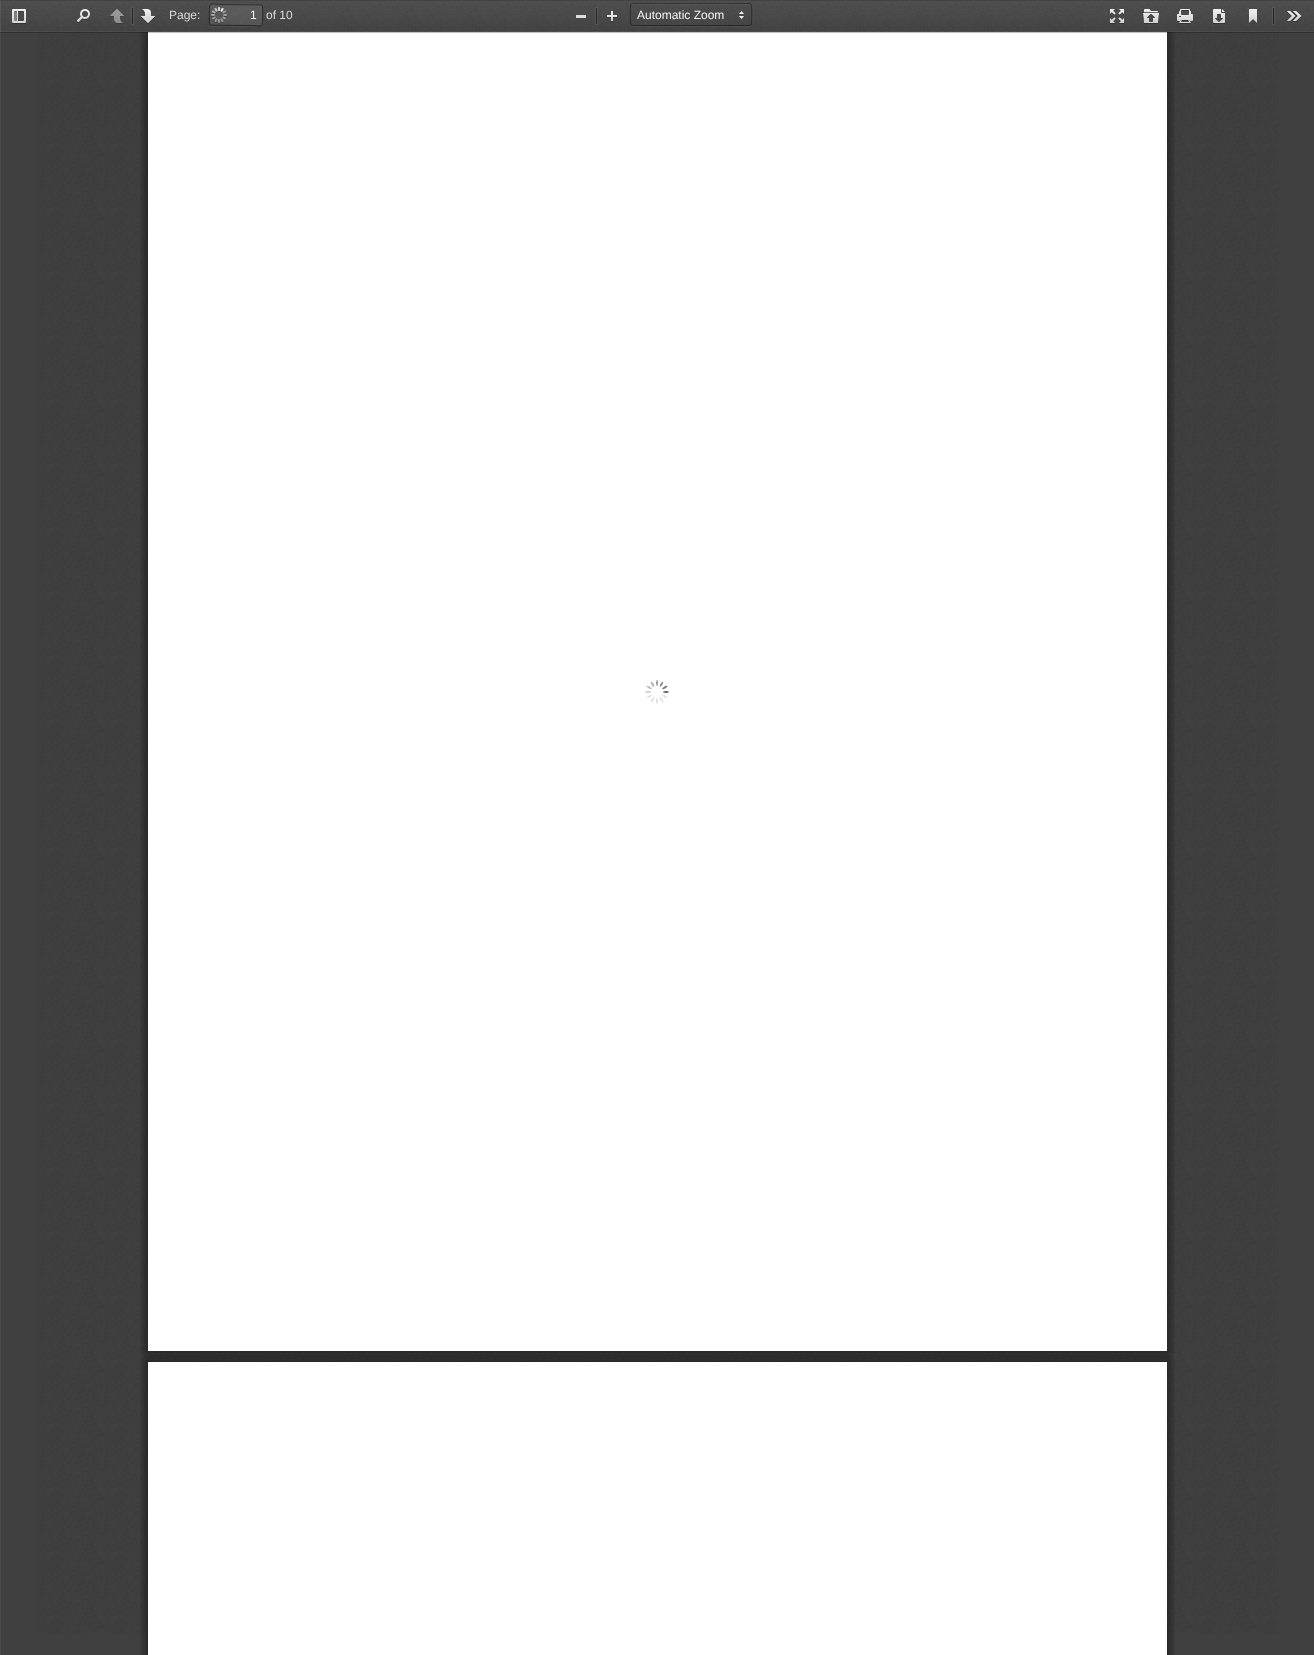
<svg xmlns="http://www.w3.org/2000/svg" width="1314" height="1655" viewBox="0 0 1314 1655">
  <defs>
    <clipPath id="clip1"><path d="M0 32h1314v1H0z"/></clipPath>
  </defs>
  <rect width="100%" height="100%" fill="#404040"/>
  <image x="38" y="17" width="1241" height="1616" href="img/1.png"/>
  <path d="M0 32h1v1623H0z" fill="#4a4a4a"/>
  <path d="M148 32h1019v1319H148z" fill="#fff"/>
  <image x="140" y="32" width="1035" height="1327" href="img/16.png"/>
  <g clip-path="url(#clip1)">
    <path d="M0 1h1314v32H0z" fill="#0000001a" filter="blur(0.5px)"/>
  </g>
  <path d="M0 32h1314v1H0z" fill="#00000026"/>
  <image x="0" y="0" width="1314" height="32" href="img/2.png"/>
  <path d="M0 31h1314v1H0z" fill="#ffffff0d"/>
  <path d="M0 0h1314v1H0z" fill="#00000026"/>
  <path d="M0 0h1v32H0z" fill="#ffffff14"/>
  <image x="12" y="9" width="14" height="15" href="img/3.png"/>
  <image x="77" y="9" width="13" height="14" href="img/4.png"/>
  <image x="110" y="9" width="14" height="15" href="img/5.png"/>
  <path d="M131.5 7.5h2v17H131.5z" fill="none" stroke="#ffffff14"/>
  <path d="M132 8h1v16H132z" fill="#00000080"/>
  <image x="141" y="9" width="14" height="15" href="img/6.png"/>
  <path d="M209 24C209 29 215 27 219 27H253C257 27 263 29 263 24L262 26H210Z" fill="#ffffff0d"/>
  <path d="M210 5h52v20H210z" fill="#ffffff17"/>
  <image x="211" y="7" width="16" height="17" href="img/7.png"/>
  <path d="M211 6H261C262 6 262 6 262 7C262 3 257 5 253 5H219C215 5 210 3 210 7C210 6 210 6 211 6Z" fill="#0000000d"/>
  <path d="M210 5C212 2.5 216 4.5 219.5 4.5L262 5" fill="none" stroke="#00000052"/>
  <path d="M262 5C263 5.5 263 24.5 262 25" fill="none" stroke="#00000061"/>
  <path d="M262 25C260 27.5 256 25.5 252.5 25.5L210 25" fill="none" stroke="#0000006b"/>
  <path d="M210 25C209 24.5 209 5.5 210 5" fill="none" stroke="#00000061"/>
  <path d="M576 15h10v3H576z" fill="#ffffffd1"/>
  <path d="M595.5 7.5h2v17H595.5z" fill="none" stroke="#ffffff14"/>
  <path d="M596 8h1v16H596z" fill="#00000080"/>
  <image x="607" y="11" width="10" height="11" href="img/8.png"/>
  <path d="M630 24C630 25 630 26 631 27H730C736 27 752 31 752 24C752 25 751 26 750 26H632C631 26 630 25 630 24Z" fill="#ffffff0d"/>
  <image x="739" y="11" width="5" height="8" href="img/9.png"/>
  <path d="M632 5H751V6C751 5 751 4 750 4H632L631 6C631 5 631 5 632 5Z" fill="#ffffff0d"/>
  <path d="M631 4L632 3.5H750L751 4" fill="none" stroke="#00000052"/>
  <path d="M751 4C752 5 752 24 751 25" fill="none" stroke="#00000061"/>
  <path d="M751 25L750 25.5H632L631 25" fill="none" stroke="#0000006b"/>
  <path d="M631 25C630 24 630 5 631 4" fill="none" stroke="#00000061"/>
  <image x="1110" y="9" width="14" height="15" href="img/10.png"/>
  <image x="1143" y="9" width="16" height="15" href="img/11.png"/>
  <image x="1177" y="9" width="16" height="15" href="img/12.png"/>
  <image x="1213" y="9" width="12" height="15" href="img/13.png"/>
  <image x="1249" y="9" width="8" height="15" href="img/14.png"/>
  <path d="M1272.5 7.5h2v17H1272.5z" fill="none" stroke="#ffffff14"/>
  <path d="M1273 8h1v16H1273z" fill="#00000080"/>
  <image x="1287" y="11" width="15" height="11" href="img/15.png"/>
  <image x="645" y="680" width="24" height="24" href="img/17.png"/>
  <path d="M148 1362h1019v293H148z" fill="#fff"/>
  <image x="140" y="1355" width="1035" height="300" href="img/18.png"/>
  <text x="169" y="19" font-family="Liberation Sans" font-size="12" fill="#d9d9d9">Page:</text>
  <text x="250" y="19" font-family="Liberation Sans" font-size="12" fill="#f2f2f2">1</text>
  <text x="266" y="19" font-family="Liberation Sans" font-size="12" fill="#d9d9d9">of 10</text>
  <text x="637" y="19" font-family="Liberation Sans" font-size="12" fill="#f2f2f2">Automatic Zoom</text>
</svg>
